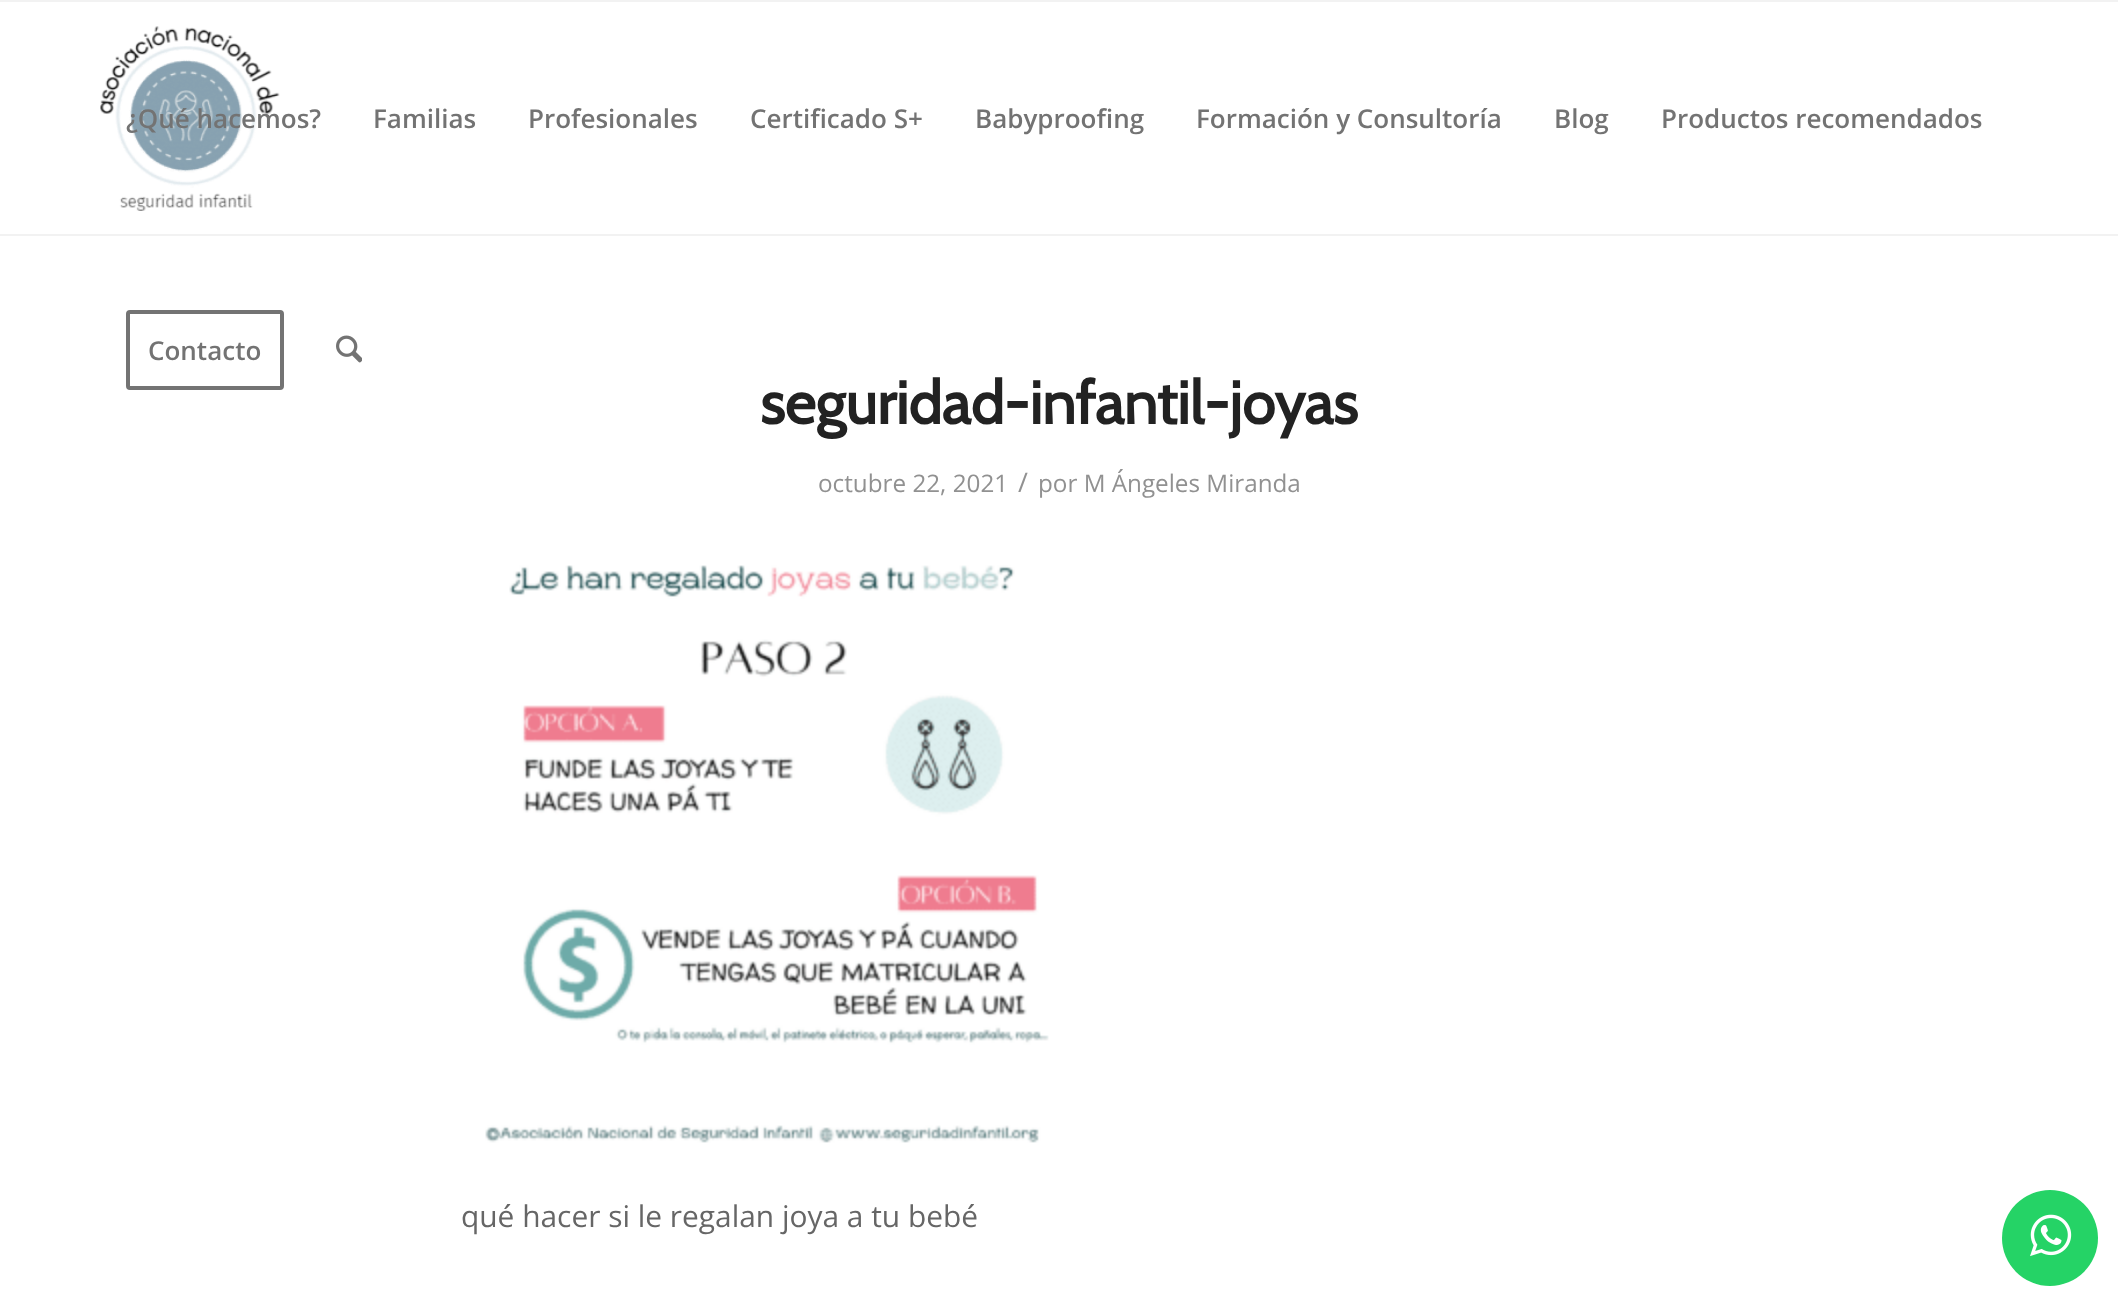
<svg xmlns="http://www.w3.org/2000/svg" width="2118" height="1306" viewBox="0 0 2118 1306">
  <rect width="100%" height="100%" fill="#fff"/>
  <path d="M0 0h2118v2H0z" fill="#f2f2f2"/>
  <path d="M0 234h2118v2H0z" fill="#f2f2f2"/>
  <image x="100" y="26" width="180" height="185" href="img/1.png"/>
  <rect x="128" y="312" width="154" height="76" rx="2" fill="none" stroke="#737373" stroke-width="4"/>
  <image x="336" y="335" width="26" height="28" href="img/2.png"/>
  <image x="485" y="565" width="564" height="578" href="img/3.png"/>
  <circle cx="2050" cy="1238" r="48" fill="#25d366"/>
  <image x="2030" y="1214" width="42" height="43" href="img/4.png"/>
  <g font-family="Open Sans" font-size="26" font-weight="600" fill="#737373">
    <text x="126" y="128">¿Qué hacemos?</text>
    <text x="373" y="128">Familias</text>
    <text x="528" y="128">Profesionales</text>
    <text x="750" y="128">Certificado S+</text>
    <text x="975" y="128">Babyproofing</text>
    <text x="1196" y="128">Formación y Consultoría</text>
    <text x="1554" y="128">Blog</text>
    <text x="1661" y="128">Productos recomendados</text>
    <text x="148" y="360">Contacto</text>
  </g>
  <text x="760" y="424" font-family="Cabin" font-size="60" font-weight="bold" fill="#222">seguridad-infantil-joyas</text>
  <text x="818" y="492" font-family="Open Sans" font-size="24.25" fill="#919191">octubre 22, 2021</text>
  <text x="1018" y="492" font-family="Open Sans" font-size="27" fill="#919191">/</text>
  <text x="1038" y="492" font-family="Open Sans" font-size="24.25" fill="#919191">por M Ángeles Miranda</text>
  <text x="461" y="1227" font-family="Open Sans" font-size="29.9" fill="#666">qué hacer si le regalan joya a tu bebé</text>
</svg>
